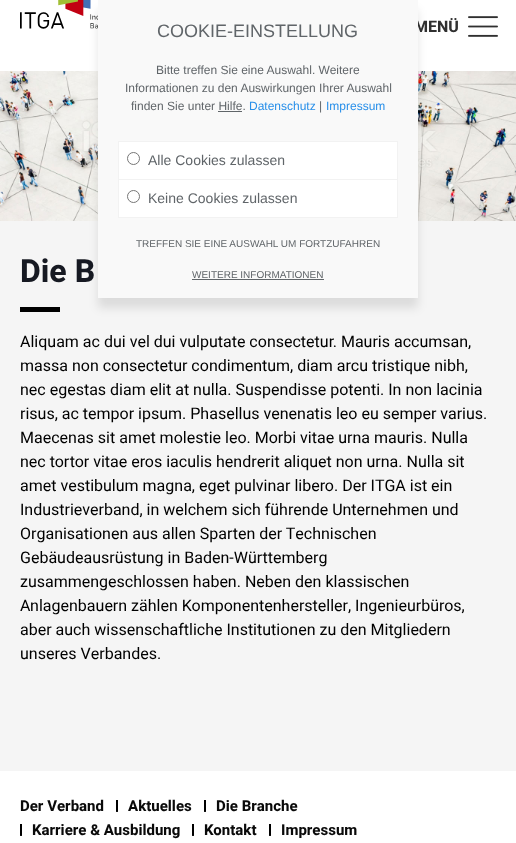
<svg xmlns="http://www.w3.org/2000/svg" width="516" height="843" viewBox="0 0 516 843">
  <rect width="100%" height="100%" fill="#f5f5f5"/>
  <path d="M0 0h516v71H0z" fill="#fff"/>
  <image x="20" y="0" width="78" height="29" href="img/1.png"/>
  <image x="468" y="16" width="30" height="21" href="img/2.png"/>
  <image x="0" y="71" width="516" height="150" href="img/3.png"/>
  <path d="M20 307h40v5H20z" fill="#000"/>
  <path d="M0 771h516v72H0z" fill="#fff"/>
  <path d="M116 800h2v12H116z" fill="#000"/>
  <path d="M116 811h2v1H116z" fill="#ffffff14"/>
  <path d="M204 800h2v12H204z" fill="#000"/>
  <path d="M204 811h2v1H204z" fill="#ffffff14"/>
  <path d="M20 824h2v12H20z" fill="#000"/>
  <path d="M20 835h2v1H20z" fill="#ffffff14"/>
  <path d="M192 824h2v12H192z" fill="#000"/>
  <path d="M173 835h21v1H173z" fill="#ffffff14"/>
  <path d="M269 824h2v12H269z" fill="#000"/>
  <path d="M269 835h40v1H269z" fill="#ffffff14"/>
  <path d="M98 10h320v298H98z" fill="#0000001a" filter="blur(5px)"/>
  <text x="414" y="32" font-family="Heebo" font-size="16" font-weight="bold" fill="#303030">MENÜ</text>
  <text x="20" y="282" font-family="Heebo" font-size="32" font-weight="bold" fill="#161922">Die B</text>
  <g font-family="Heebo" font-size="16" fill="#000">
    <text x="20" y="347">Aliquam ac dui vel dui vulputate consectetur. Mauris accumsan,</text>
    <text x="20" y="371">massa non consectetur condimentum, diam arcu tristique nibh,</text>
    <text x="20" y="395">nec egestas diam elit at nulla. Suspendisse potenti. In non lacinia</text>
    <text x="20" y="419">risus, ac tempor ipsum. Phasellus venenatis leo eu semper varius.</text>
    <text x="20" y="443">Maecenas sit amet molestie leo. Morbi vitae urna mauris. Nulla</text>
    <text x="20" y="467">nec tortor vitae eros iaculis hendrerit aliquet non urna. Nulla sit</text>
    <text x="20" y="491">amet vestibulum magna, eget pulvinar libero. Der ITGA ist ein</text>
    <text x="20" y="515">Industrieverband, in welchem sich führende Unternehmen und</text>
    <text x="20" y="539">Organisationen aus allen Sparten der Technischen</text>
    <text x="20" y="563">Gebäudeausrüstung in Baden-Württemberg</text>
    <text x="20" y="587">zusammengeschlossen haben. Neben den klassischen</text>
    <text x="20" y="611">Anlagenbauern zählen Komponentenhersteller, Ingenieurbüros,</text>
    <text x="20" y="635">aber auch wissenschaftliche Institutionen zu den Mitgliedern</text>
    <text x="20" y="659">unseres Verbandes.</text>
  </g>
  <g font-family="Heebo" font-size="15" font-weight="bold" fill="#0a0a0a">
    <text x="20" y="811">Der Verband</text>
    <text x="128" y="811">Aktuelles</text>
    <text x="216" y="811">Die Branche</text>
    <text x="32" y="835">Karriere &amp; Ausbildung</text>
    <text x="204" y="835">Kontakt</text>
    <text x="281" y="835">Impressum</text>
  </g>
  <path d="M98 0h320v298H98z" fill="#f9f9f9"/>
  <text x="157" y="37" font-family="Liberation Sans" font-size="18" fill="#606569">COOKIE-EINSTELLUNG</text>
  <g font-family="Liberation Sans" font-size="12" fill="#606569">
    <text x="156" y="74">Bitte treffen Sie eine Auswahl. Weitere</text>
    <text x="125" y="92">Informationen zu den Auswirkungen Ihrer Auswahl</text>
    <text x="131" y="110">finden Sie unter Hilfe.</text>
  </g>
  <text x="249" y="110" font-family="Liberation Sans" font-size="12" fill="#288fe9">Datenschutz</text>
  <text x="319" y="110" font-family="Liberation Sans" font-size="12" fill="#606569">|</text>
  <text x="326" y="110" font-family="Liberation Sans" font-size="12" fill="#288fe9">Impressum</text>
  <path d="M218 111h24v1H218z" fill="#606569"/>
  <path d="M118 141h280v1H118z" fill="#f2f2f2"/>
  <path d="M397 141h1v77H397z" fill="#f2f2f2"/>
  <path d="M118 141h1v77H118z" fill="#f2f2f2"/>
  <path d="M119 142h278v37H119z" fill="#fff"/>
  <path d="M119 179h278v1H119z" fill="#f2f2f2"/>
  <circle cx="133.5" cy="158.5" r="6" fill="none" stroke="#767676"/>
  <text x="148" y="165" font-family="Liberation Sans" font-size="14" fill="#606569">Alle Cookies zulassen</text>
  <path d="M119 180h278v37H119z" fill="#fff"/>
  <path d="M119 217h278v1H119z" fill="#f2f2f2"/>
  <circle cx="133.5" cy="196.5" r="6" fill="none" stroke="#767676"/>
  <text x="148" y="203" font-family="Liberation Sans" font-size="14" fill="#606569">Keine Cookies zulassen</text>
  <g font-family="Liberation Sans" font-size="10" fill="#606569">
    <text x="136" y="247">TREFFEN SIE EINE AUSWAHL UM FORTZUFAHREN</text>
    <text x="192" y="278">WEITERE INFORMATIONEN</text>
  </g>
  <path d="M192 279h132v1H192z" fill="#606569"/>
</svg>
